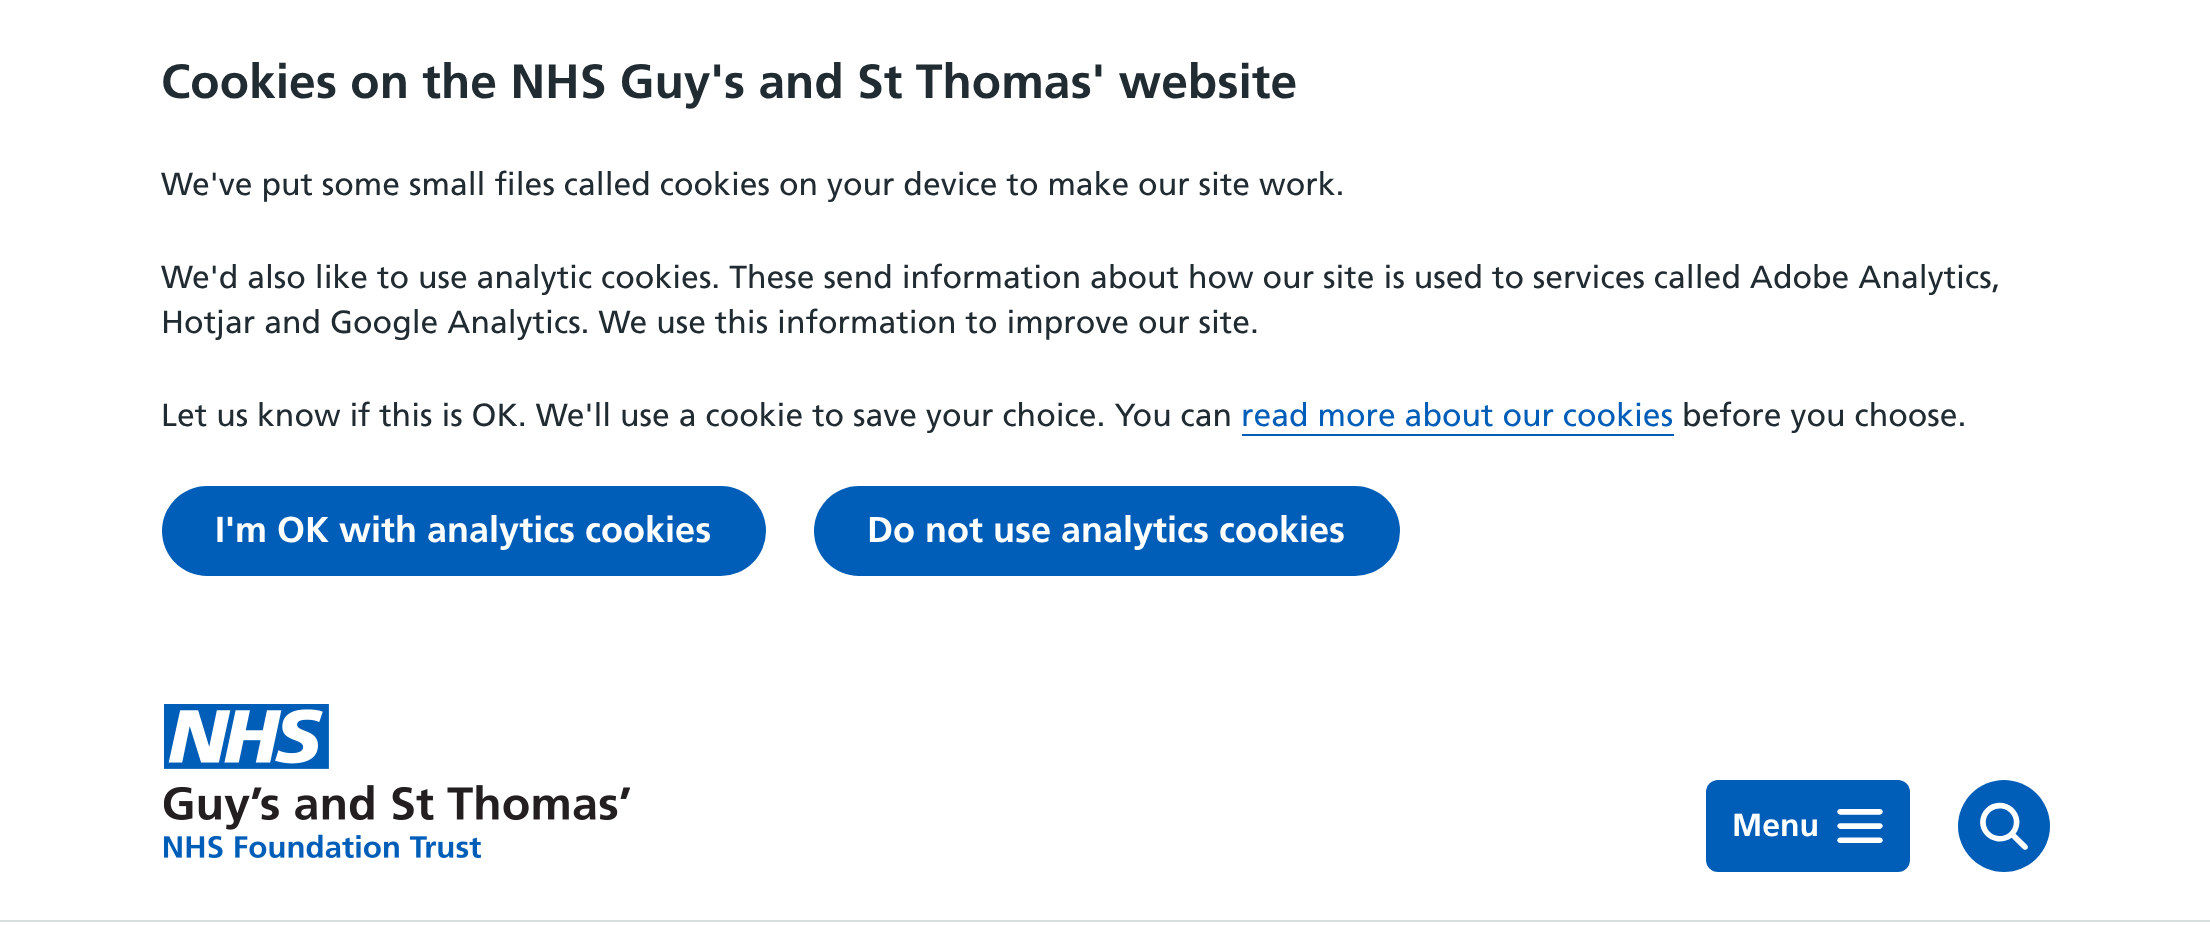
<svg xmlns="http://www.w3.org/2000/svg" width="2210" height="925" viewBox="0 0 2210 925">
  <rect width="100%" height="100%" fill="#fff"/>
  <path d="M1242 434h432v2H1242z" fill="#005eb8"/>
  <rect x="162" y="486" width="604" height="90" rx="45" fill="#005eb8"/>
  <rect x="814" y="486" width="586" height="90" rx="45" fill="#005eb8"/>
  <image x="164" y="704" width="466" height="154" href="img/1.png"/>
  <rect x="1706" y="780" width="204" height="92" rx="12" fill="#005eb8"/>
  <image x="1837" y="809" width="46" height="34" href="img/2.png"/>
  <circle cx="2004" cy="826" r="46" fill="#005eb8"/>
  <image x="1980" y="802" width="48" height="48" href="img/3.png"/>
  <path d="M0 920h2210v2H0z" fill="#d8dde0"/>
  <text x="161" y="98" font-family="Frutiger" font-size="48" font-weight="bold" fill="#212b32">Cookies on the NHS Guy's and St Thomas' website</text>
  <g font-family="Frutiger" font-size="32" fill="#212b32">
    <text x="161" y="195">We've put some small files called cookies on your device to make our site work.</text>
    <text x="161" y="288">We'd also like to use analytic cookies. These send information about how our site is used to services called Adobe Analytics,</text>
    <text x="161" y="333">Hotjar and Google Analytics. We use this information to improve our site.</text>
    <text x="161" y="426">Let us know if this is OK. We'll use a cookie to save your choice. You can</text>
  </g>
  <text x="1241" y="426" font-family="Frutiger" font-size="32" fill="#005eb8">read more about our cookies</text>
  <text x="1682" y="426" font-family="Frutiger" font-size="32" fill="#212b32">before you choose.</text>
  <g font-family="Frutiger" font-size="36" font-weight="bold" fill="#fff">
    <text x="215" y="542">I'm OK with analytics cookies</text>
    <text x="867" y="542">Do not use analytics cookies</text>
  </g>
  <text x="1732" y="836" font-family="Frutiger" font-size="32" font-weight="bold" fill="#fff">Menu</text>
</svg>
